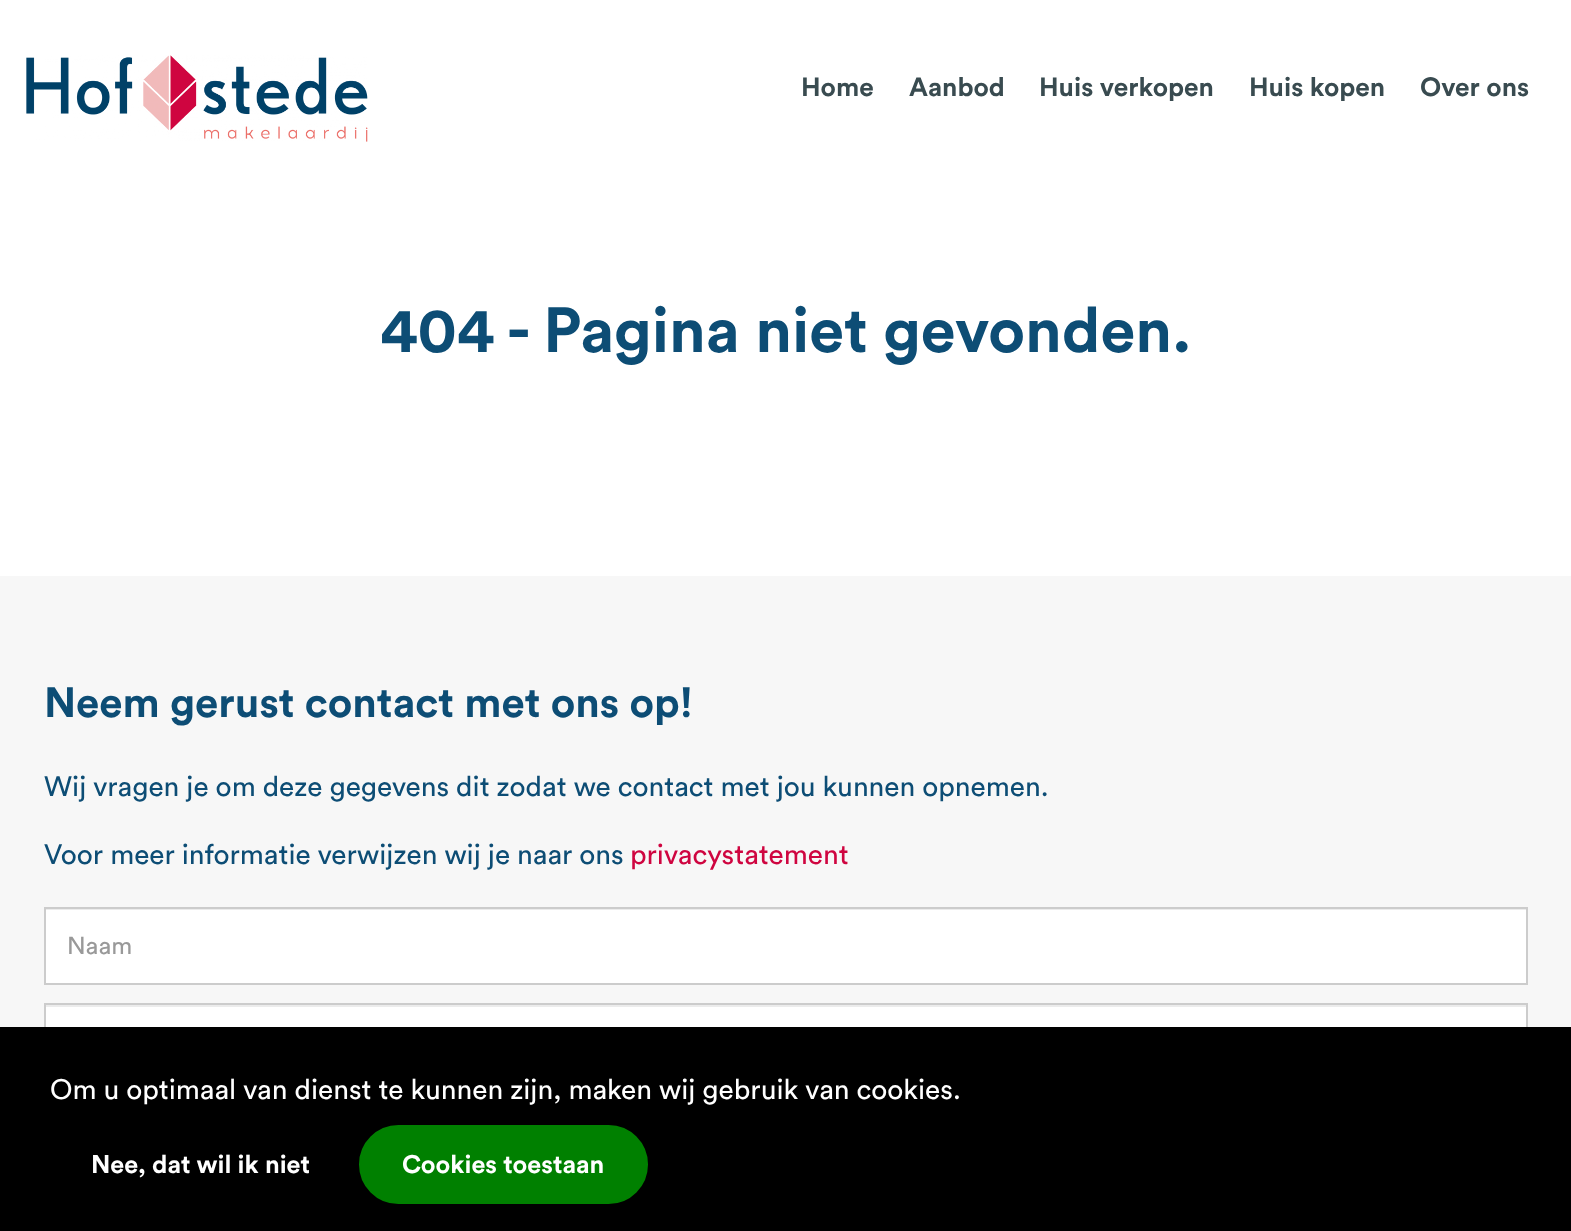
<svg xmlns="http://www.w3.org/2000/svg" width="1571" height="1231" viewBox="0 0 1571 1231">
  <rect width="100%" height="100%" fill="#fff"/>
  <image x="26" y="55" width="342" height="87" href="img/1.png"/>
  <path d="M0 576h1571v451H0z" fill="#f7f7f7"/>
  <path d="M46 910h1480v73H46z" fill="#fff"/>
  <path d="M46 909h1480v1H46z" fill="#ececec"/>
  <path d="M45 908h1482v76H45z" fill="none" stroke="#ccc" stroke-width="2"/>
  <path d="M46 1007h1480v20H46z" fill="#fff"/>
  <path d="M46 1005h1480v2H46z" fill="#ececec"/>
  <path d="M45 1004h1482v77H45z" fill="none" stroke="#ccc" stroke-width="2"/>
  <path d="M0 1027h1571v204H0z" fill="#000"/>
  <rect x="361" y="1127" width="285" height="75" rx="37.5" fill="#008000" stroke="#008000" stroke-width="4"/>
  <g font-family="Circular" font-size="26.25" font-weight="bold" fill="#394b50">
    <text x="801" y="96">Home</text>
    <text x="909" y="96">Aanbod</text>
    <text x="1039" y="96">Huis verkopen</text>
    <text x="1249" y="96">Huis kopen</text>
    <text x="1420" y="96">Over ons</text>
  </g>
  <text x="380" y="352" font-family="Circular" font-size="63" font-weight="bold" fill="#0d4d75">404 - Pagina niet gevonden.</text>
  <text x="44" y="717" font-family="Circular" font-size="42" font-weight="bold" fill="#0d4d75">Neem gerust contact met ons op!</text>
  <g font-family="Circular" font-size="28" fill="#0d4d75">
    <text x="44" y="796">Wij vragen je om deze gegevens dit zodat we contact met jou kunnen opnemen.</text>
    <text x="44" y="864">Voor meer informatie verwijzen wij je naar ons</text>
  </g>
  <text x="630" y="864" font-family="Circular" font-size="28" fill="#cf0540">privacystatement</text>
  <text x="67" y="954" font-family="Circular" font-size="24.5" fill="#999">Naam</text>
  <text x="50" y="1099" font-family="Circular" font-size="28" fill="#fff">Om u optimaal van dienst te kunnen zijn, maken wij gebruik van cookies.</text>
  <g font-family="Circular" font-size="25.25" font-weight="bold" fill="#fff">
    <text x="91" y="1173">Nee, dat wil ik niet</text>
    <text x="402" y="1173">Cookies toestaan</text>
  </g>
</svg>
